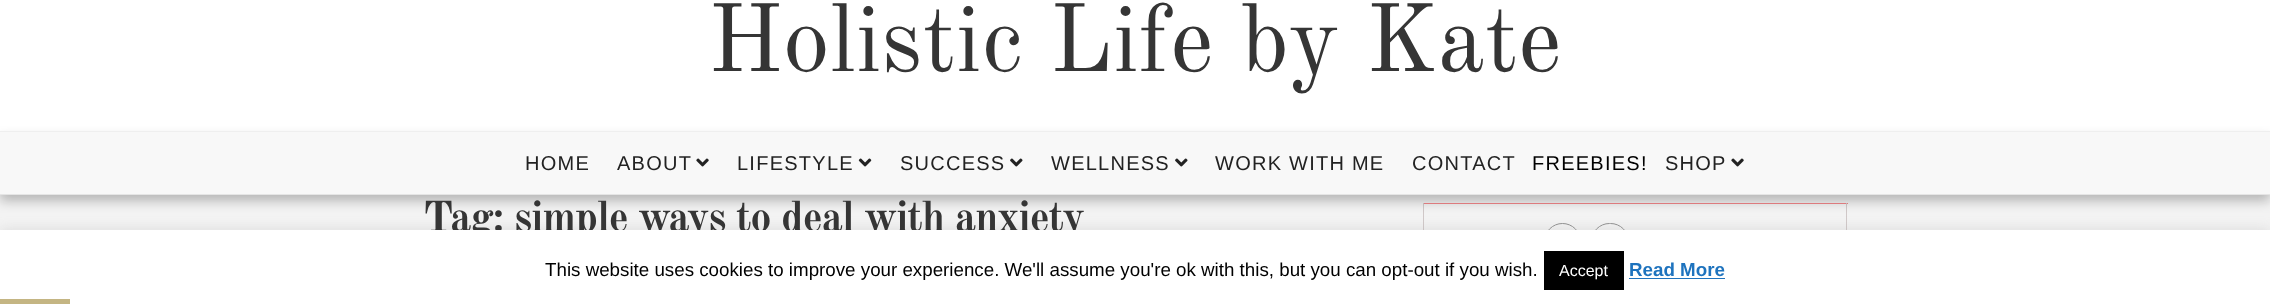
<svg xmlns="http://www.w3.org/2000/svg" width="2270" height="304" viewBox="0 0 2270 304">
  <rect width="100%" height="100%" fill="#f3f3f3"/>
  <path d="M0 0h2270v131H0z" fill="#fff"/>
  <path d="M1423 203h425v1H1423z" fill="#f1868a"/>
  <path d="M1846 203h1v27H1846z" fill="#d0c8c8"/>
  <path d="M1423 203h1v27H1423z" fill="#d0c8c8"/>
  <path d="M0 138h2270v63H0z" fill="#00000040" filter="blur(6px)"/>
  <path d="M0 132h2270v62H0z" fill="#f8f8f8"/>
  <path d="M0 131h2270v1H0z" fill="#efefef"/>
  <path d="M0 194h2270v1H0z" fill="#e5e5e5"/>
  <image x="696" y="158" width="13" height="9" href="img/1.png"/>
  <image x="858" y="158" width="14" height="9" href="img/2.png"/>
  <image x="1010" y="158" width="13" height="9" href="img/3.png"/>
  <image x="1175" y="158" width="13" height="9" href="img/3.png"/>
  <image x="1731" y="158" width="13" height="9" href="img/1.png"/>
  <circle cx="1562.5" cy="241.5" r="18" fill="none" stroke="#909090"/>
  <rect x="1591.5" y="223.5" width="37" height="36" rx="18" fill="none" stroke="#909090"/>
  <path d="M0 229h2270v75H0z" fill="#acabab4d" filter="blur(6px)"/>
  <text x="708" y="71" font-family="Old Standard TT" font-size="95" fill="#353535">Holistic Life by Kate</text>
  <g font-family="Liberation Sans" font-size="20" letter-spacing="1.25" fill="#222">
    <text x="525" y="170">HOME</text>
    <text x="617" y="170">ABOUT</text>
    <text x="737" y="170">LIFESTYLE</text>
    <text x="900" y="170">SUCCESS</text>
    <text x="1051" y="170">WELLNESS</text>
    <text x="1215" y="170">WORK WITH ME</text>
    <text x="1412" y="170">CONTACT</text>
  </g>
  <text x="1532" y="170" font-family="Liberation Sans" font-size="20" letter-spacing="1.25" fill="#000">FREEBIES!</text>
  <text x="1665" y="170" font-family="Liberation Sans" font-size="20" letter-spacing="1.25" fill="#222">SHOP</text>
  <text x="423" y="231" font-family="Old Standard TT" font-size="42.5" font-weight="bold" letter-spacing="-1.25" fill="#353535">Tag: simple ways to deal with anxiety</text>
  <path d="M0 230h2270v74H0z" fill="#fff"/>
  <text x="545" y="276" font-family="Liberation Sans" font-size="18.75" fill="#000">This website uses cookies to improve your experience. We'll assume you're ok with this, but you can opt-out if you wish.</text>
  <path d="M1544 251h80v39H1544z" fill="#000"/>
  <text x="1559" y="276" font-family="Liberation Sans" font-size="16" fill="#fff">Accept</text>
  <text x="1629" y="276" font-family="Liberation Sans" font-size="18.75" font-weight="bold" fill="#1e73be">Read More</text>
  <path d="M1629 278h96v1H1629z" fill="#1e73be"/>
  <path d="M0 299h70v5H0z" fill="#c4b583"/>
</svg>
